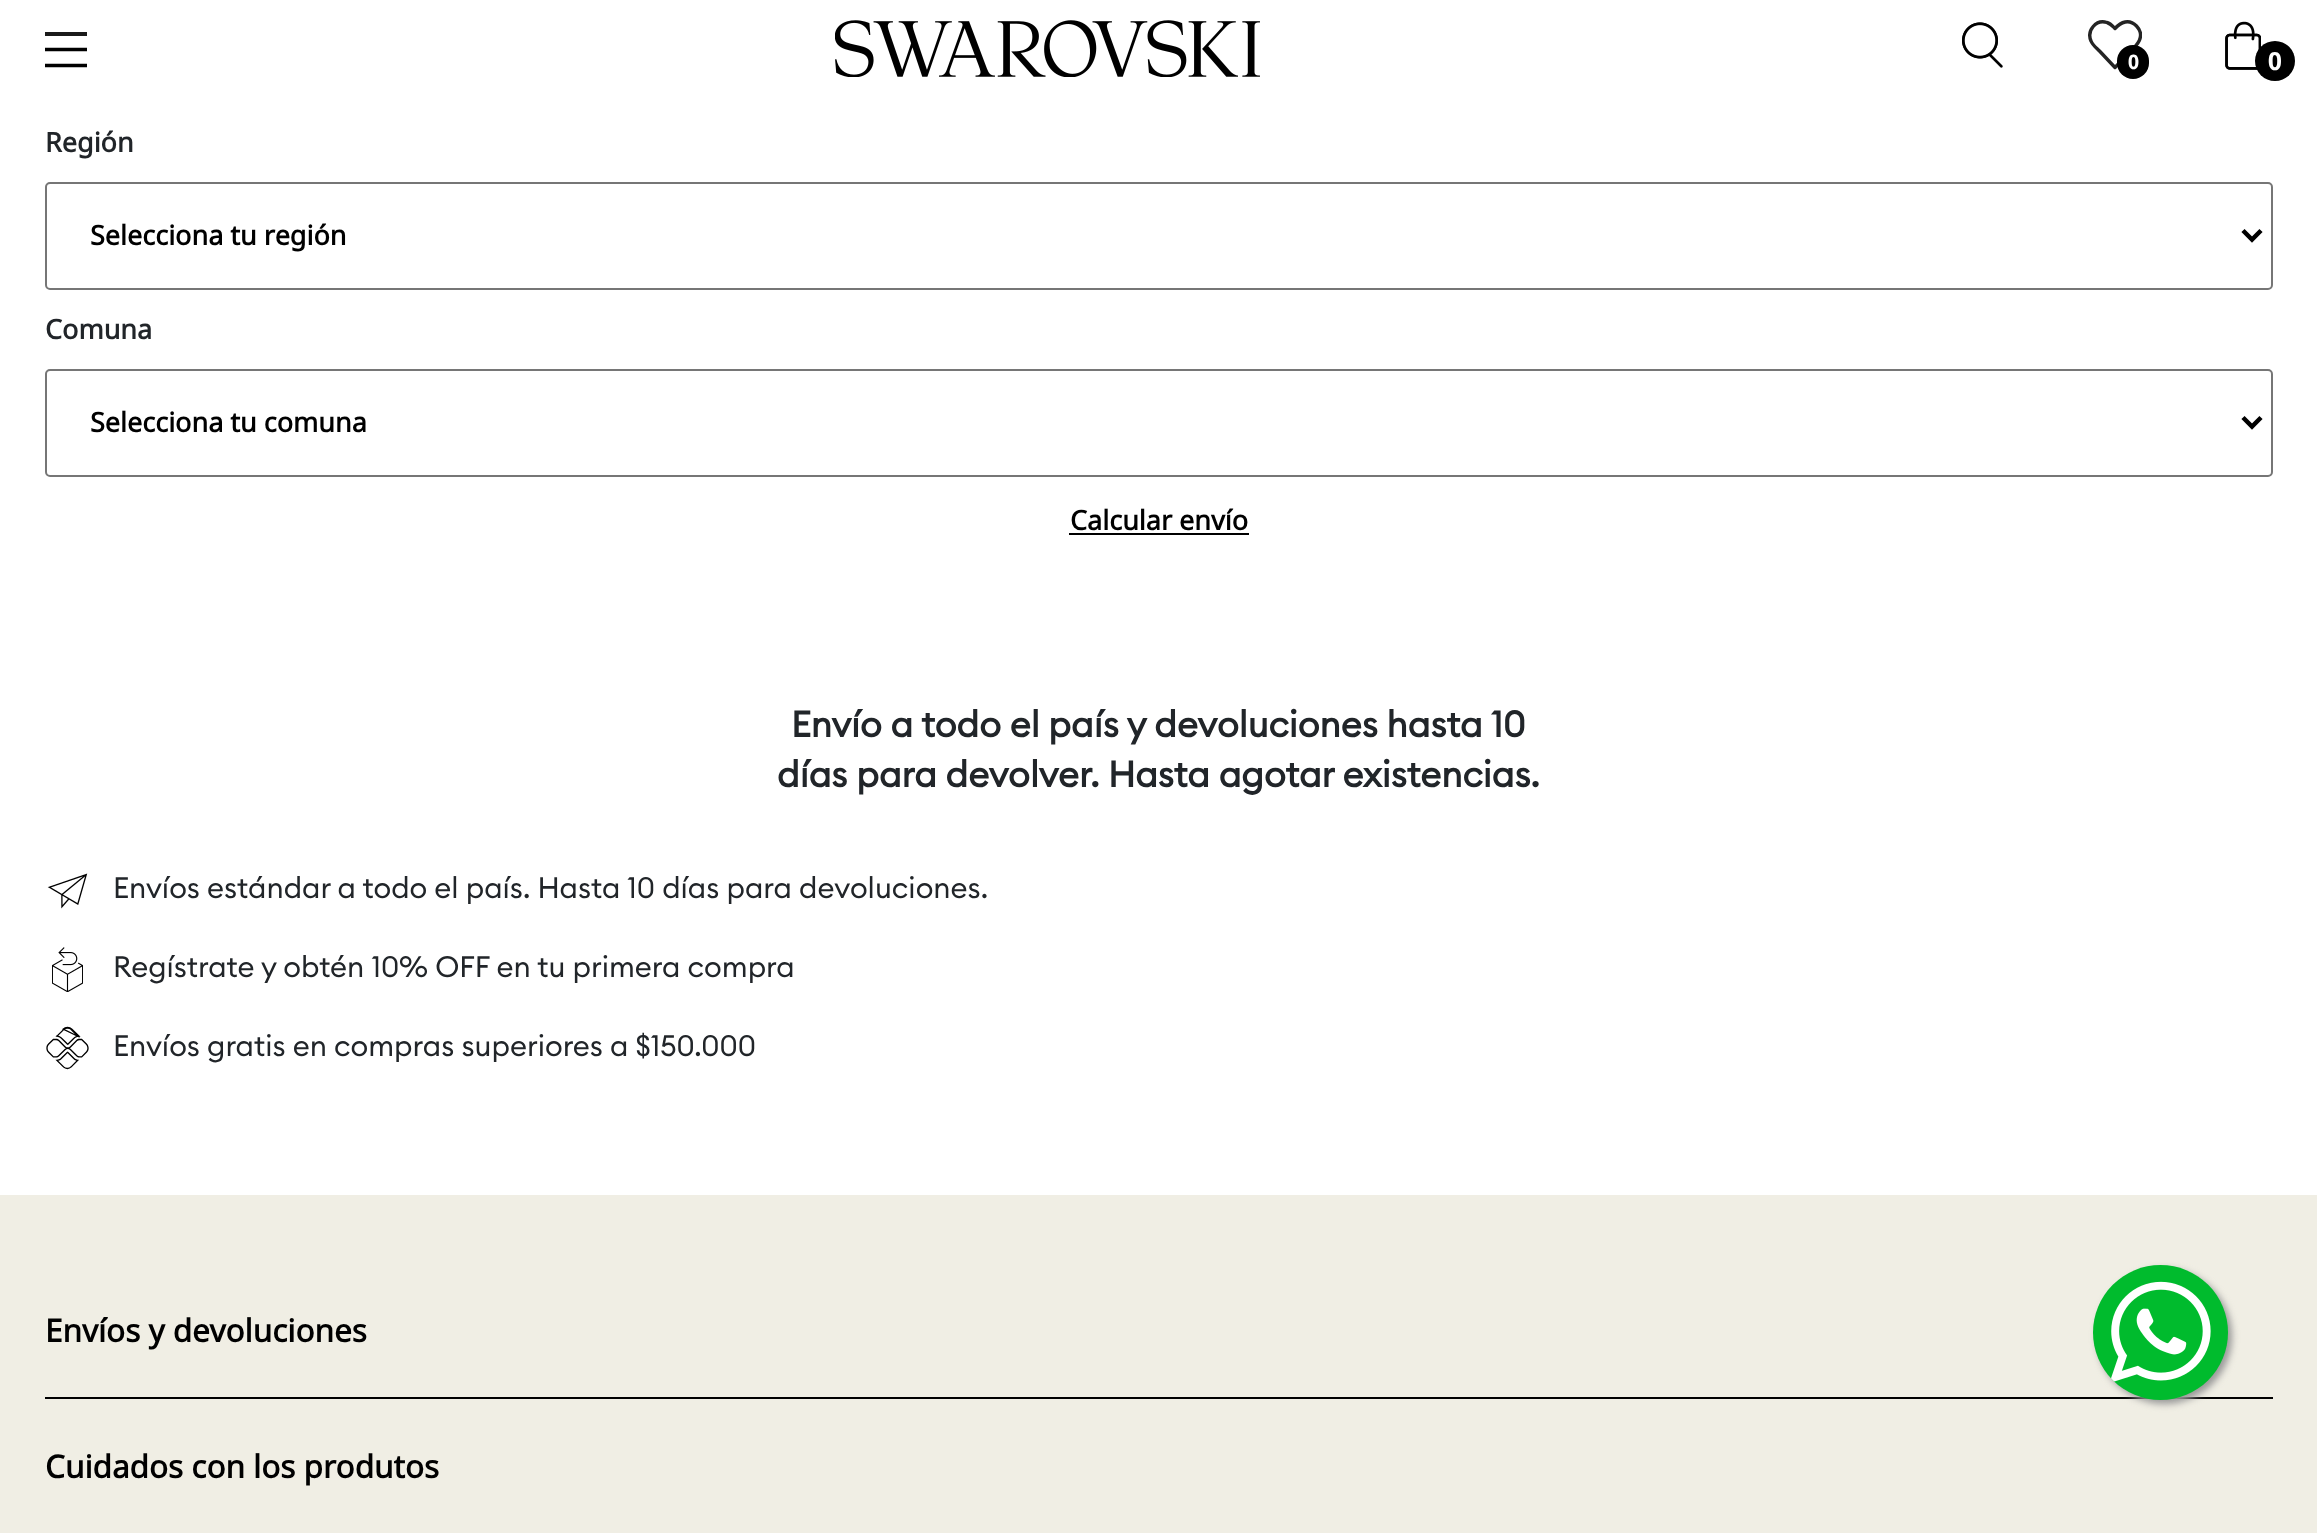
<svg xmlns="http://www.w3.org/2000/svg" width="2317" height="1533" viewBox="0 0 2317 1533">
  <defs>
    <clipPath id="clip1"><path d="M2088 18h54v52H2088z"/></clipPath>
  </defs>
  <rect width="100%" height="100%" fill="#f0eee4"/>
  <path d="M0 0h2317v1195H0z" fill="#fff"/>
  <path d="M45 32h42v4H45z" fill="#1a1a1a"/>
  <path d="M45 49.5H87M45 65.5H87" fill="none" stroke="#000" stroke-width="3.6"/>
  <image x="835" y="20" width="425" height="57" href="img/1.png"/>
  <image x="1962" y="22" width="41" height="46" href="img/2.png"/>
  <g clip-path="url(#clip1)">
    <path d="M2136.5 26C2129 18.5 2121 22 2115 28.5C2112.5 26 2110.5 23.5 2107 22.5C2096 19 2086.5 30.5 2091 41C2092.5 45 2096.5 48 2099.5 51L2115 67.5L2127.5 54.5C2135 47 2147 37 2136.5 26Z" fill="none" stroke="#242424" stroke-width="3.4" stroke-linecap="round" stroke-linejoin="round"/>
  </g>
  <rect x="2117" y="45" width="32" height="34" rx="16" fill="#000"/>
  <image x="2225" y="21" width="36" height="49" href="img/3.png"/>
  <circle cx="2275" cy="61" r="20" fill="#000"/>
  <rect x="46" y="183" width="2226" height="106" rx="4" fill="none" stroke="#767676" stroke-width="2"/>
  <path d="M2243 230.5L2252 239.5L2261 230.5" fill="none" stroke="#000" stroke-width="4.5"/>
  <rect x="46" y="370" width="2226" height="106" rx="4" fill="none" stroke="#767676" stroke-width="2"/>
  <path d="M2243 417.5L2252 426.5L2261 417.5" fill="none" stroke="#000" stroke-width="4.5"/>
  <path d="M1069 533h180v2H1069z" fill="#000"/>
  <image x="47" y="873" width="41" height="36" href="img/4.png"/>
  <image x="52" y="947" width="31" height="45" href="img/5.png"/>
  <image x="46" y="1026" width="43" height="44" href="img/6.png"/>
  <path d="M45 1397h2228v2H45z" fill="#000"/>
  <rect x="2097" y="1269" width="135" height="135" rx="67.5" fill="#999" filter="blur(3.5px)"/>
  <circle cx="2160.5" cy="1332.5" r="67.5" fill="#00bb2d"/>
  <image x="2111" y="1281" width="100" height="101" href="img/7.png"/>
  <text x="2128" y="69" font-family="'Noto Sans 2'" font-size="20" font-weight="bold" fill="#fff">0</text>
  <text x="2268" y="70" font-family="'Noto Sans 2'" font-size="25" font-weight="bold" fill="#fff">0</text>
  <text x="45" y="152" font-family="Noto Sans" font-size="27" font-weight="bold" fill="#212529">Región</text>
  <text x="90" y="245" font-family="Noto Sans" font-size="27" font-weight="bold" fill="#000">Selecciona tu región</text>
  <text x="45" y="339" font-family="Noto Sans" font-size="27" font-weight="bold" fill="#212529">Comuna</text>
  <g font-family="Noto Sans" font-size="27" font-weight="bold" fill="#000">
    <text x="90" y="432">Selecciona tu comuna</text>
    <text x="1070" y="530">Calcular envío</text>
  </g>
  <g font-family="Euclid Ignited" font-size="36" font-weight="bold" fill="#212529">
    <text x="791" y="737">Envío a todo el país y devoluciones hasta 10</text>
    <text x="777" y="787">días para devolver. Hasta agotar existencias.</text>
  </g>
  <g font-family="Euclid Ignited" font-size="29.25" fill="#212529">
    <text x="113" y="898">Envíos estándar a todo el país. Hasta 10 días para devoluciones.</text>
    <text x="113" y="977">Regístrate y obtén 10% OFF en tu primera compra</text>
    <text x="113" y="1056">Envíos gratis en compras superiores a $150.000</text>
  </g>
  <g font-family="Noto Sans" font-size="31.5" font-weight="bold" fill="#000">
    <text x="45" y="1342">Envíos y devoluciones</text>
    <text x="45" y="1478">Cuidados con los produtos</text>
  </g>
</svg>
